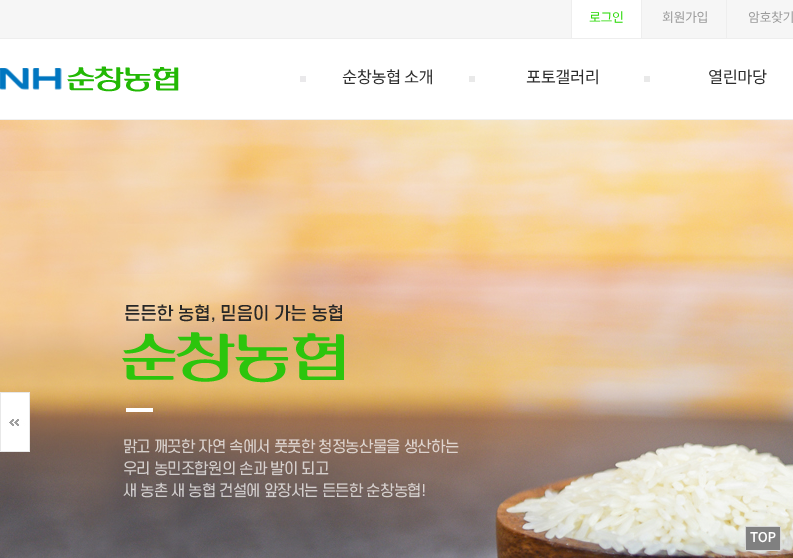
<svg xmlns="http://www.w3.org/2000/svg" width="793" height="558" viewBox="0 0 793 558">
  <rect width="100%" height="100%" fill="#fff"/>
  <path d="M0 0h793v38H0z" fill="#f6f6f6"/>
  <path d="M0 38h793v1H0z" fill="#eee"/>
  <path d="M572 0h69v38H572z" fill="#fff"/>
  <path d="M641 0h1v38H641z" fill="#eee"/>
  <path d="M571 0h1v38H571z" fill="#eee"/>
  <path d="M726 0h1v38H726z" fill="#eee"/>
  <image x="0" y="66" width="179" height="26" href="img/1.png"/>
  <path d="M300 76h6v6H300z" fill="#eae9eb"/>
  <path d="M469 76h6v6H469z" fill="#e9e9e9"/>
  <path d="M644 76h6v6H644z" fill="#e9e9e9"/>
  <path d="M0 119h793v1H0z" fill="#f0f0f0"/>
  <image x="0" y="120" width="793" height="438" href="img/2.png"/>
  <image x="122" y="304" width="337" height="194" href="img/3.png"/>
  <image x="0" y="392" width="30" height="60" href="img/4.png"/>
  <path d="M745.5 526.5h35v24H745.5z" fill="#808080" stroke="#d7d7d7"/>
  <text x="589" y="22" font-family="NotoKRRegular" font-size="13" letter-spacing="-0.5" fill="#2dd90a">로그인</text>
  <g font-family="NotoKRRegular" font-size="13" letter-spacing="-0.5" fill="#9c9c9c">
    <text x="662" y="22">회원가입</text>
    <text x="748" y="22">암호찾기</text>
  </g>
  <g font-family="NotoKRRegular" font-size="16.5" letter-spacing="-0.5" fill="#2d2d2d">
    <text x="342" y="83">순창농협 소개</text>
    <text x="526" y="83">포토갤러리</text>
    <text x="708" y="83">열린마당</text>
  </g>
  <text x="750" y="542" font-family="NotoKRRegular" font-size="13" font-weight="bold" fill="#fff">TOP</text>
</svg>
